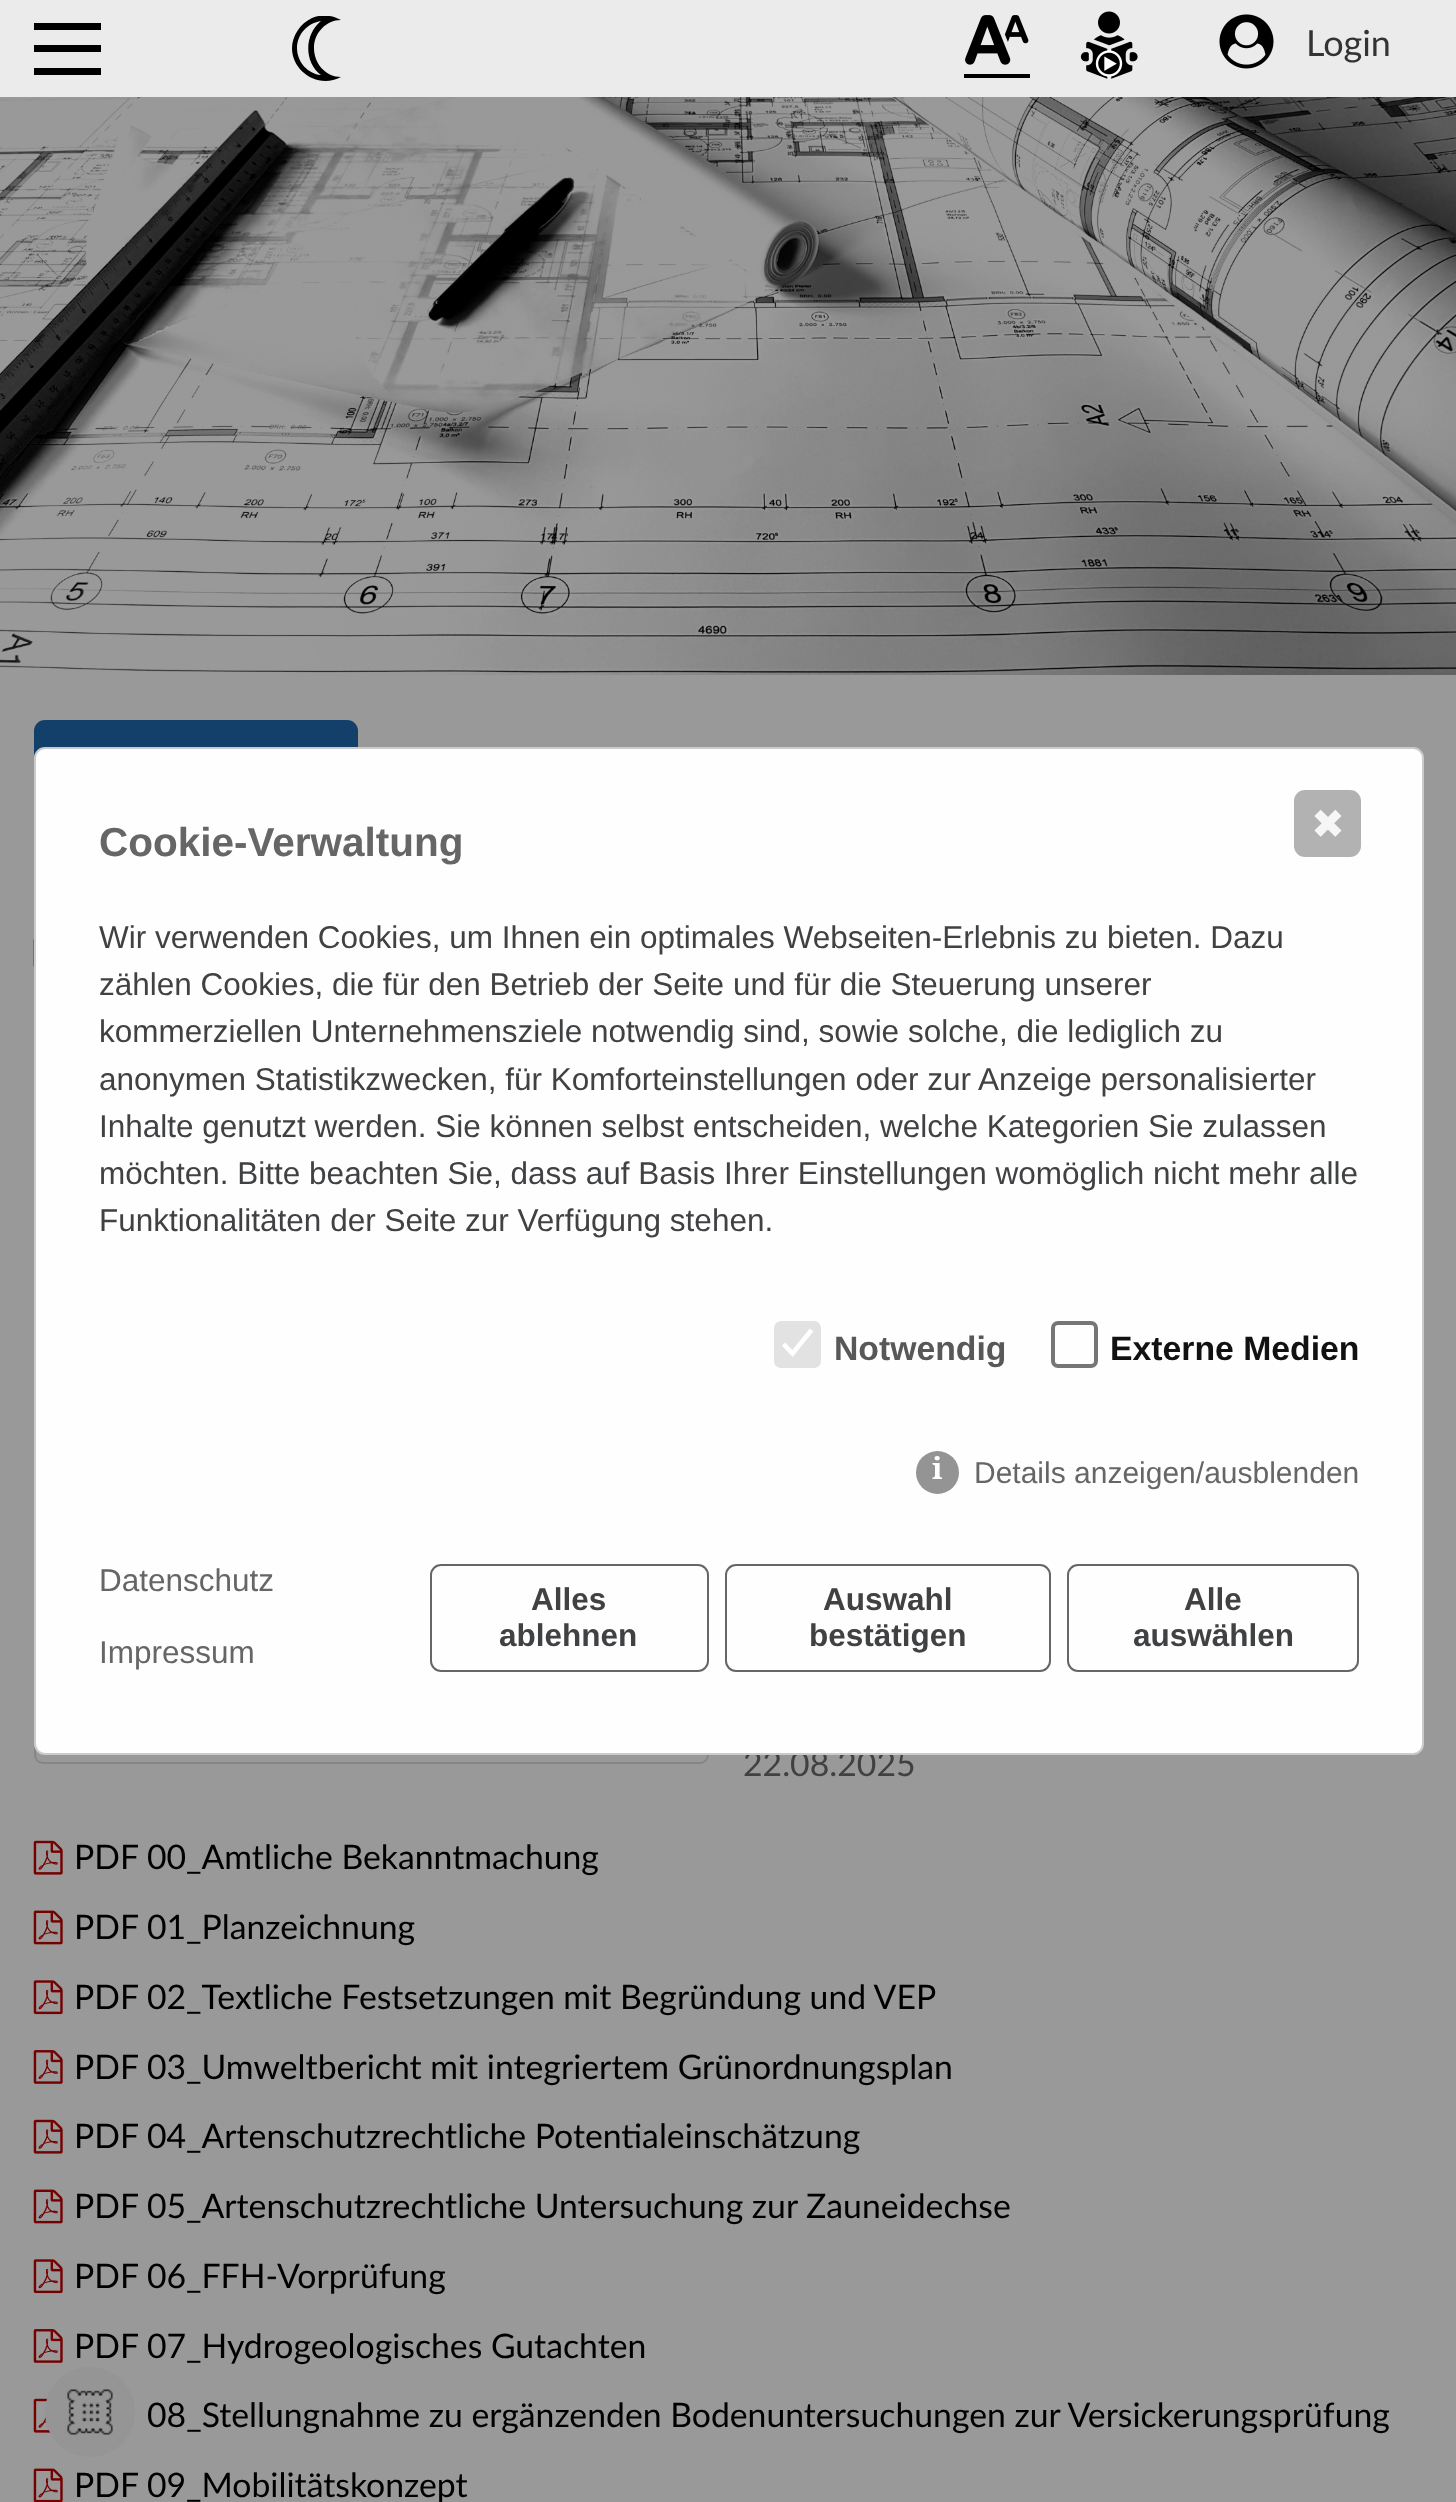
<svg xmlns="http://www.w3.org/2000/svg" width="1456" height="2502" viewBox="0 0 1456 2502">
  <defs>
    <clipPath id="clip1"><path d="M284 16h67v67H284z"/></clipPath>
  </defs>
  <rect width="100%" height="100%" fill="#999"/>
  <path d="M0 0h1456v97H0z" fill="#ebebeb"/>
  <path d="M34 45h67v7H34z" fill="#000"/>
  <path d="M34 23h67v7H34z" fill="#000"/>
  <path d="M34 68h67v7H34z" fill="#000"/>
  <g clip-path="url(#clip1)">
    <path d="M314 48C314 33 326 20 341 20C332 15 321 14 312 18C306 21 301 25 298 30C278 59 312 93 341 77C326 77 314 64 314 48ZM297 48C297 34 308 23 321 21C304 35 304 62 321 75C308 74 297 62 297 48Z" fill="#000"/>
  </g>
  <image x="964" y="15" width="66" height="63" href="img/1.png"/>
  <image x="1080" y="11" width="58" height="68" href="img/2.png"/>
  <image x="1219" y="14" width="55" height="55" href="img/3.png"/>
  <image x="0" y="97" width="1456" height="578" href="img/4.png"/>
  <rect x="34" y="720" width="324" height="99" rx="11" fill="#13406a"/>
  <image x="33" y="939" width="1" height="28" href="img/5.png"/>
  <rect x="35" y="1272" width="673" height="491" rx="8" fill="none" stroke="#858585" stroke-width="2"/>
  <image x="33" y="1840" width="30" height="35" href="img/6.png"/>
  <image x="33" y="1910" width="30" height="35" href="img/7.png"/>
  <image x="33" y="1980" width="30" height="35" href="img/8.png"/>
  <image x="33" y="2050" width="30" height="34" href="img/9.png"/>
  <image x="33" y="2119" width="30" height="35" href="img/6.png"/>
  <image x="33" y="2189" width="30" height="35" href="img/7.png"/>
  <image x="33" y="2259" width="30" height="35" href="img/8.png"/>
  <image x="33" y="2329" width="30" height="34" href="img/9.png"/>
  <image x="33" y="2398" width="18" height="35" href="img/10.png"/>
  <image x="33" y="2468" width="30" height="34" href="img/11.png"/>
  <circle cx="90" cy="2412" r="45" fill="#959595"/>
  <image x="67" y="2389" width="46" height="46" href="img/12.png"/>
  <text x="1306" y="56" font-family="Lato" font-size="36" fill="#333">Login</text>
  <text x="743" y="1776" font-family="Lato" font-size="33.75" fill="#404143">22.08.2025</text>
  <rect x="35" y="748" width="1388" height="1006" rx="10" fill="#fefefe" stroke="#cbcbcb" stroke-width="2"/>
  <rect x="1295" y="791" width="65" height="65" rx="10" fill="#b2b2b2" stroke="#b2b2b2" stroke-width="2"/>
  <text x="1311" y="838" font-family="DejaVu Sans" font-size="40.5" fill="#f6f6f6">✖</text>
  <circle cx="937.5" cy="1472.5" r="21.5" fill="#949494"/>
  <text x="932" y="1479" font-family="Noto Serif" font-size="30" font-weight="bold" fill="#fefefe">i</text>
  <rect x="1053" y="1323" width="43" height="43" rx="5" fill="none" stroke="#767676" stroke-width="4"/>
  <text x="1110" y="1360" font-family="Liberation Sans" font-size="33.75" font-weight="bold" fill="#111">Externe Medien</text>
  <text x="834" y="1360" font-family="Liberation Sans" font-size="33.75" font-weight="bold" fill="#585858">Notwendig</text>
  <rect x="774" y="1321" width="47" height="47" rx="7" fill="#e2e2e2"/>
  <path d="M783.5 1344L792.5 1353.5L811.5 1330" fill="none" stroke="#fff" stroke-width="4.7"/>
  <g font-family="Liberation Sans" font-size="31.5" fill="#666">
    <text x="99" y="1663">Impressum</text>
    <text x="99" y="1591">Datenschutz</text>
  </g>
  <rect x="1068" y="1565" width="290" height="106" rx="10" fill="none" stroke="#666" stroke-width="2"/>
  <g font-family="Liberation Sans" font-size="31.5" font-weight="bold" fill="#404143">
    <text x="1133" y="1646">auswählen</text>
    <text x="1184" y="1610">Alle</text>
  </g>
  <rect x="726" y="1565" width="324" height="106" rx="10" fill="none" stroke="#666" stroke-width="2"/>
  <g font-family="Liberation Sans" font-size="31.5" font-weight="bold" fill="#404143">
    <text x="809" y="1646">bestätigen</text>
    <text x="823" y="1610">Auswahl</text>
  </g>
  <rect x="431" y="1565" width="277" height="106" rx="10" fill="none" stroke="#666" stroke-width="2"/>
  <g font-family="Liberation Sans" font-size="31.5" font-weight="bold" fill="#404143">
    <text x="499" y="1646">ablehnen</text>
    <text x="531" y="1610">Alles</text>
  </g>
  <text x="974" y="1483" font-family="Liberation Sans" font-size="30" fill="#666">Details anzeigen/ausblenden</text>
  <g font-family="Liberation Sans" font-size="31.5" fill="#404143">
    <text x="99" y="1231">Funktionalitäten der Seite zur Verfügung stehen.</text>
    <text x="99" y="1184">möchten. Bitte beachten Sie, dass auf Basis Ihrer Einstellungen womöglich nicht mehr alle</text>
    <text x="99" y="1137">Inhalte genutzt werden. Sie können selbst entscheiden, welche Kategorien Sie zulassen</text>
    <text x="99" y="1090">anonymen Statistikzwecken, für Komforteinstellungen oder zur Anzeige personalisierter</text>
    <text x="99" y="1042">kommerziellen Unternehmensziele notwendig sind, sowie solche, die lediglich zu</text>
    <text x="99" y="995">zählen Cookies, die für den Betrieb der Seite und für die Steuerung unserer</text>
    <text x="99" y="948">Wir verwenden Cookies, um Ihnen ein optimales Webseiten-Erlebnis zu bieten. Dazu</text>
  </g>
  <text x="99" y="856" font-family="Liberation Sans" font-size="40.5" font-weight="bold" fill="#666">Cookie-Verwaltung</text>
  <g font-family="Lato" font-size="33.75" fill="#000">
    <text x="74" y="1869">PDF 00_Amtliche Bekanntmachung</text>
    <text x="74" y="1939">PDF 01_Planzeichnung</text>
    <text x="74" y="2009">PDF 02_Textliche Festsetzungen mit Begründung und VEP</text>
    <text x="74" y="2079">PDF 03_Umweltbericht mit integriertem Grünordnungsplan</text>
    <text x="74" y="2148">PDF 04_Artenschutzrechtliche Potentialeinschätzung</text>
    <text x="74" y="2218">PDF 05_Artenschutzrechtliche Untersuchung zur Zauneidechse</text>
    <text x="74" y="2288">PDF 06_FFH-Vorprüfung</text>
    <text x="74" y="2358">PDF 07_Hydrogeologisches Gutachten</text>
    <text x="147" y="2427">08_Stellungnahme zu ergänzenden Bodenuntersuchungen zur Versickerungsprüfung</text>
    <text x="74" y="2497">PDF 09_Mobilitätskonzept</text>
  </g>
</svg>
